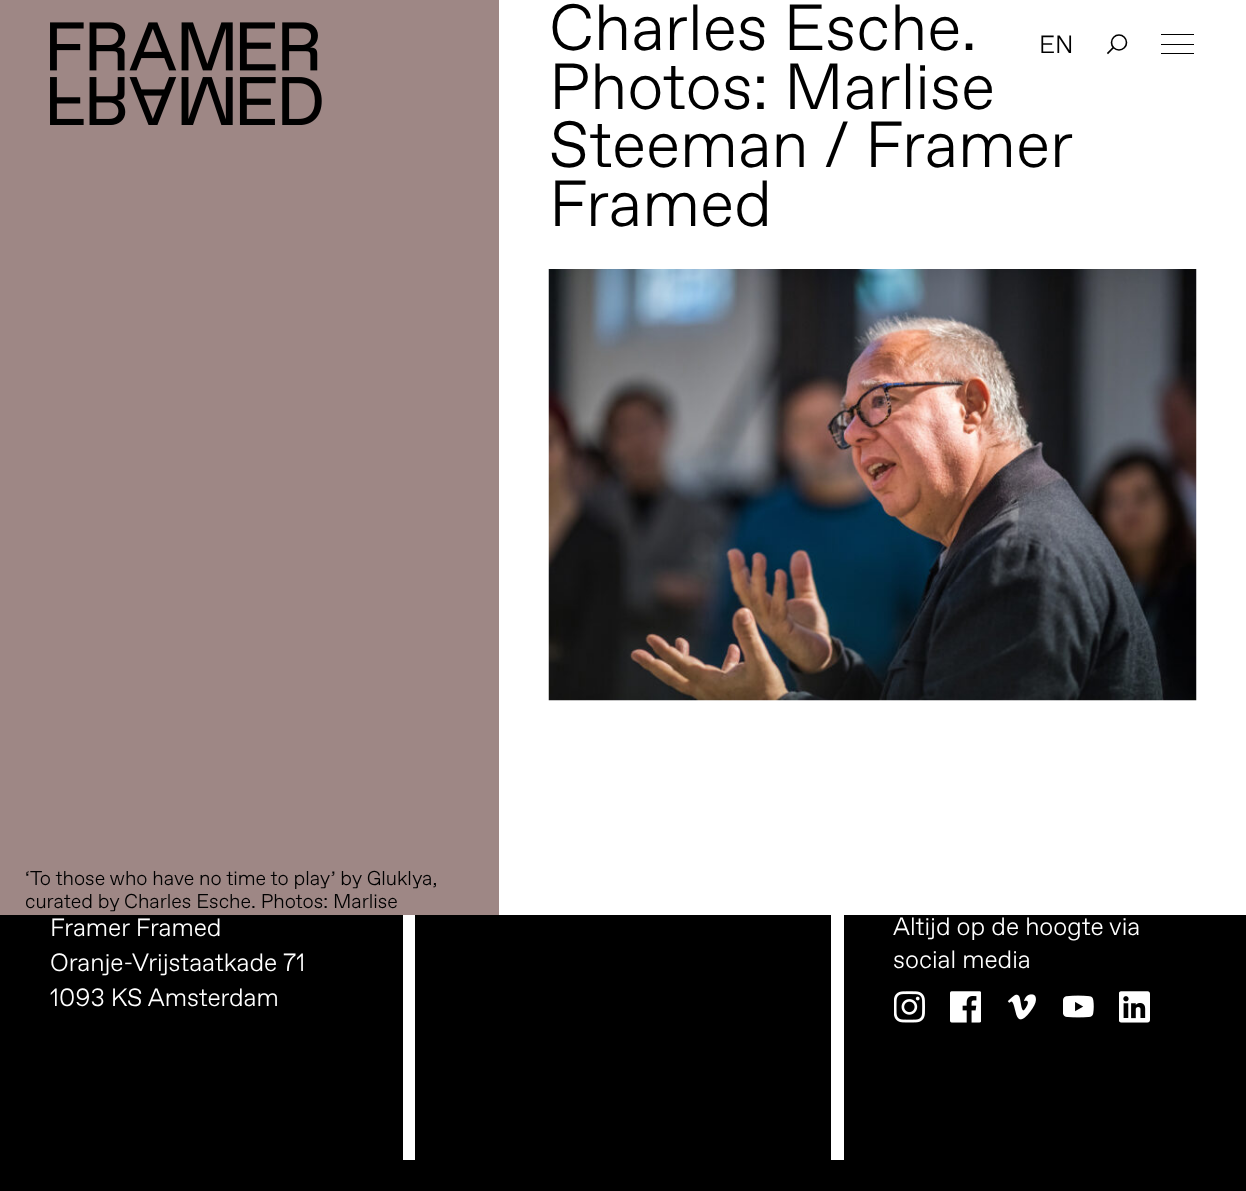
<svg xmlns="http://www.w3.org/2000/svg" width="1246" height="1191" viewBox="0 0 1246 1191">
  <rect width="100%" height="100%" fill="#000"/>
  <path d="M499 0h747v915H499z" fill="#fff"/>
  <image x="548" y="269" width="649" height="432" href="img/1.png"/>
  <path d="M0 0h499v915H0z" fill="#9e8785"/>
  <image x="50" y="22" width="272" height="103" href="img/2.png"/>
  <path d="M1113 48L1108 53" fill="none" stroke="#000" stroke-width="1.6" stroke-linecap="square"/>
  <circle cx="1119" cy="42.5" r="7.5" fill="none" stroke="#000" stroke-width="1.6"/>
  <path d="M1161 34h33v1H1161z" fill="#000"/>
  <path d="M1161 44h33v1H1161z" fill="#000"/>
  <path d="M1161 53h33v1H1161z" fill="#000"/>
  <path d="M831 915h13v245H831z" fill="#fff"/>
  <path d="M403 915h12v245H403z" fill="#fff"/>
  <image x="894" y="991" width="31" height="32" href="img/3.png"/>
  <image x="950" y="991" width="31" height="32" href="img/4.png"/>
  <image x="1007" y="994" width="29" height="26" href="img/5.png"/>
  <image x="1063" y="995" width="31" height="23" href="img/6.png"/>
  <image x="1119" y="991" width="31" height="32" href="img/7.png"/>
  <g font-family="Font" font-size="65" font-weight="300" fill="#000">
    <text x="549" y="50">Charles Esche.</text>
    <text x="549" y="109">Photos: Marlise</text>
    <text x="549" y="167" word-spacing="-1">Steeman / Framer</text>
    <text x="549" y="226">Framed</text>
  </g>
  <g font-family="Font" font-size="20" font-weight="300" fill="#000">
    <text x="25" y="885">‘To those who have no time to play’ by Gluklya,</text>
    <text x="25" y="908">curated by Charles Esche. Photos: Marlise</text>
  </g>
  <text x="1039" y="53" font-family="Font" font-size="25" font-weight="300" fill="#000">EN</text>
  <g font-family="Font" font-size="25" font-weight="300" fill="#fff">
    <text x="50" y="936">Framer Framed</text>
    <text x="50" y="971">Oranje-Vrijstaatkade 71</text>
    <text x="50" y="1006">1093 KS Amsterdam</text>
    <text x="893" y="935">Altijd op de hoogte via</text>
    <text x="893" y="968">social media</text>
  </g>
</svg>
